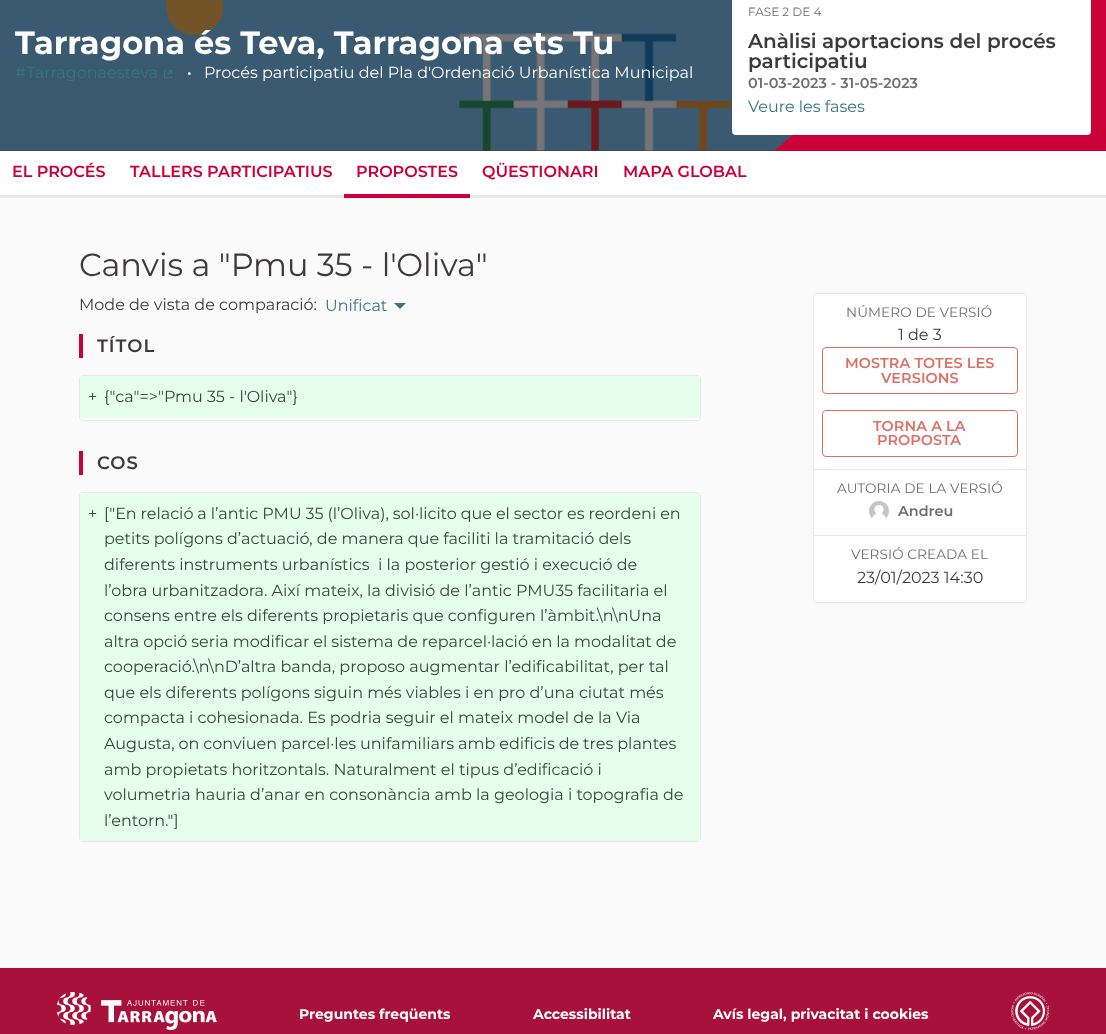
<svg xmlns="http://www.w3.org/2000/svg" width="1106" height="1034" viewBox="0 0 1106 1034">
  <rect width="100%" height="100%" fill="#fafafa"/>
  <path d="M774 0h332v151H774z" fill="#cc0038"/>
  <path d="M0-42V151H774L995-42Z" fill="#786f83"/>
  <image x="0" y="0" width="792" height="151" href="img/1.png"/>
  <path d="M0-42V151H774L995-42Z" fill="#1a181d99"/>
  <image x="164" y="70" width="8" height="8" href="img/2.png"/>
  <rect x="732" y="-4" width="359" height="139" rx="4" fill="#fff"/>
  <path d="M0 151h1106v44H0z" fill="#fff"/>
  <path d="M0 195h1106v3H0z" fill="#e8e8e8"/>
  <path d="M344 194h126v4H344z" fill="#cc0038"/>
  <path d="M394 303H406L400 309Z" fill="#39747f"/>
  <path d="M79 334h4v24H79z" fill="#cc0038"/>
  <rect x="79.5" y="375.5" width="621" height="45" rx="3.5" fill="#fff" stroke="#e8e8e8"/>
  <path d="M80 376h620v42H80z" fill="#e6ffed"/>
  <path d="M79 451h4v24H79z" fill="#cc0038"/>
  <rect x="79.5" y="492.5" width="621" height="349" rx="3.5" fill="none" stroke="#e8e8e8"/>
  <path d="M80 493h620v348H80z" fill="#e6ffed"/>
  <rect x="813.5" y="293.5" width="213" height="309" rx="3.5" fill="#fff" stroke="#e8e8e8"/>
  <path d="M814 469h212v1H814z" fill="#e8e8e8"/>
  <rect x="822.5" y="347.5" width="195" height="46" rx="3.5" fill="none" stroke="#db7165"/>
  <rect x="822.5" y="410.5" width="195" height="46" rx="3.5" fill="none" stroke="#db7165"/>
  <path d="M814 535h212v1H814z" fill="#e8e8e8"/>
  <image x="869" y="501" width="20" height="17" href="img/3.png"/>
  <path d="M0 968h1106v66H0z" fill="#a8113c"/>
  <image x="57" y="992" width="160" height="38" href="img/4.png"/>
  <image x="1011" y="992" width="38" height="38" href="img/5.png"/>
  <text x="15" y="54" font-family="Montserrat" font-size="32" font-weight="bold" fill="#fff">Tarragona és Teva, Tarragona ets Tu</text>
  <text x="15" y="78" font-family="Montserrat" font-size="16" fill="#39747f">#Tarragonaesteva</text>
  <text x="187" y="78" font-family="Montserrat" font-size="16" font-weight="600" fill="#fff">·</text>
  <text x="204" y="78" font-family="Montserrat" font-size="16" fill="#fff">Procés participatiu del Pla d'Ordenació Urbanística Municipal</text>
  <text x="748" y="16" font-family="Montserrat" font-size="12" fill="#726a70">FASE 2 DE 4</text>
  <g font-family="Montserrat" font-size="20" font-weight="600" fill="#3d393c">
    <text x="748" y="48">Anàlisi aportacions del procés</text>
    <text x="748" y="68">participatiu</text>
  </g>
  <text x="748" y="88" font-family="Montserrat" font-size="14.4" font-weight="600" fill="#726a70">01-03-2023 - 31-05-2023</text>
  <text x="748" y="112" font-family="Montserrat" font-size="16" fill="#39747f">Veure les fases</text>
  <g font-family="Montserrat" font-size="16" font-weight="600" fill="#cc0038">
    <text x="12" y="177">EL PROCÉS</text>
    <text x="130" y="177">TALLERS PARTICIPATIUS</text>
    <text x="356" y="177">PROPOSTES</text>
    <text x="482" y="177">QÜESTIONARI</text>
    <text x="623" y="177">MAPA GLOBAL</text>
  </g>
  <text x="79" y="276" font-family="Montserrat" font-size="32" fill="#3d393c">Canvis a "Pmu 35 - l'Oliva"</text>
  <text x="79" y="310" font-family="Montserrat" font-size="16" fill="#3d393c">Mode de vista de comparació:</text>
  <text x="325" y="311" font-family="Montserrat" font-size="16" fill="#39747f">Unificat</text>
  <text x="97" y="352" font-family="Montserrat" font-size="18" font-weight="600" letter-spacing="1" fill="#3d393c">TÍTOL</text>
  <g font-family="Montserrat" font-size="16" fill="#2d4c36">
    <text x="88" y="402">+</text>
    <text x="104" y="402">{"ca"=&gt;"Pmu 35 - l'Oliva"}</text>
  </g>
  <text x="97" y="469" font-family="Montserrat" font-size="18" font-weight="600" letter-spacing="1" fill="#3d393c">COS</text>
  <g font-family="Montserrat" font-size="16" fill="#2d4c36">
    <text x="88" y="519">+</text>
    <text x="104" y="519" word-spacing="-0.25">["En relació a l’antic PMU 35 (l’Oliva), sol·licito que el sector es reordeni en</text>
    <text x="104" y="544">petits polígons d’actuació, de manera que faciliti la tramitació dels</text>
    <text x="104" y="570" xml:space="preserve">diferents instruments urbanístics  i la posterior gestió i execució de</text>
    <text x="104" y="596">l’obra urbanitzadora. Així mateix, la divisió de l’antic PMU35 facilitaria el</text>
    <text x="104" y="621">consens entre els diferents propietaris que configuren l’àmbit.\n\nUna</text>
    <text x="104" y="647" word-spacing="-0.25">altra opció seria modificar el sistema de reparcel·lació en la modalitat de</text>
    <text x="104" y="672">cooperació.\n\nD’altra banda, proposo augmentar l’edificabilitat, per tal</text>
    <text x="104" y="698">que els diferents polígons siguin més viables i en pro d’una ciutat més</text>
    <text x="104" y="723">compacta i cohesionada. Es podria seguir el mateix model de la Via</text>
    <text x="104" y="749" word-spacing="-0.25">Augusta, on conviuen parcel·les unifamiliars amb edificis de tres plantes</text>
    <text x="104" y="775">amb propietats horitzontals. Naturalment el tipus d’edificació i</text>
    <text x="104" y="800">volumetria hauria d’anar en consonància amb la geologia i topografia de</text>
    <text x="104" y="826">l’entorn."]</text>
  </g>
  <text x="846" y="317" font-family="Montserrat" font-size="13.6" letter-spacing="0.1" fill="#726a70">NÚMERO DE VERSIÓ</text>
  <text x="898" y="340" font-family="Montserrat" font-size="16" fill="#3d393c">1 de 3</text>
  <g font-family="Montserrat" font-size="14.4" font-weight="600" letter-spacing="0.1" fill="#db7165">
    <text x="845" y="368">MOSTRA TOTES LES</text>
    <text x="881" y="383">VERSIONS</text>
    <text x="873" y="431">TORNA A LA</text>
    <text x="877" y="445">PROPOSTA</text>
  </g>
  <text x="837" y="493" font-family="Montserrat" font-size="13.6" letter-spacing="0.1" fill="#726a70">AUTORIA DE LA VERSIÓ</text>
  <text x="898" y="516" font-family="Montserrat" font-size="14.4" font-weight="600" fill="#726a70">Andreu</text>
  <text x="851" y="559" font-family="Montserrat" font-size="13.6" letter-spacing="0.1" fill="#726a70">VERSIÓ CREADA EL</text>
  <text x="857" y="583" font-family="Montserrat" font-size="16" fill="#3d393c">23/01/2023 14:30</text>
  <g font-family="Montserrat" font-size="14" font-weight="bold" fill="#fff">
    <text x="299" y="1019">Preguntes freqüents</text>
    <text x="533" y="1019">Accessibilitat</text>
    <text x="713" y="1019">Avís legal, privacitat i cookies</text>
  </g>
</svg>
